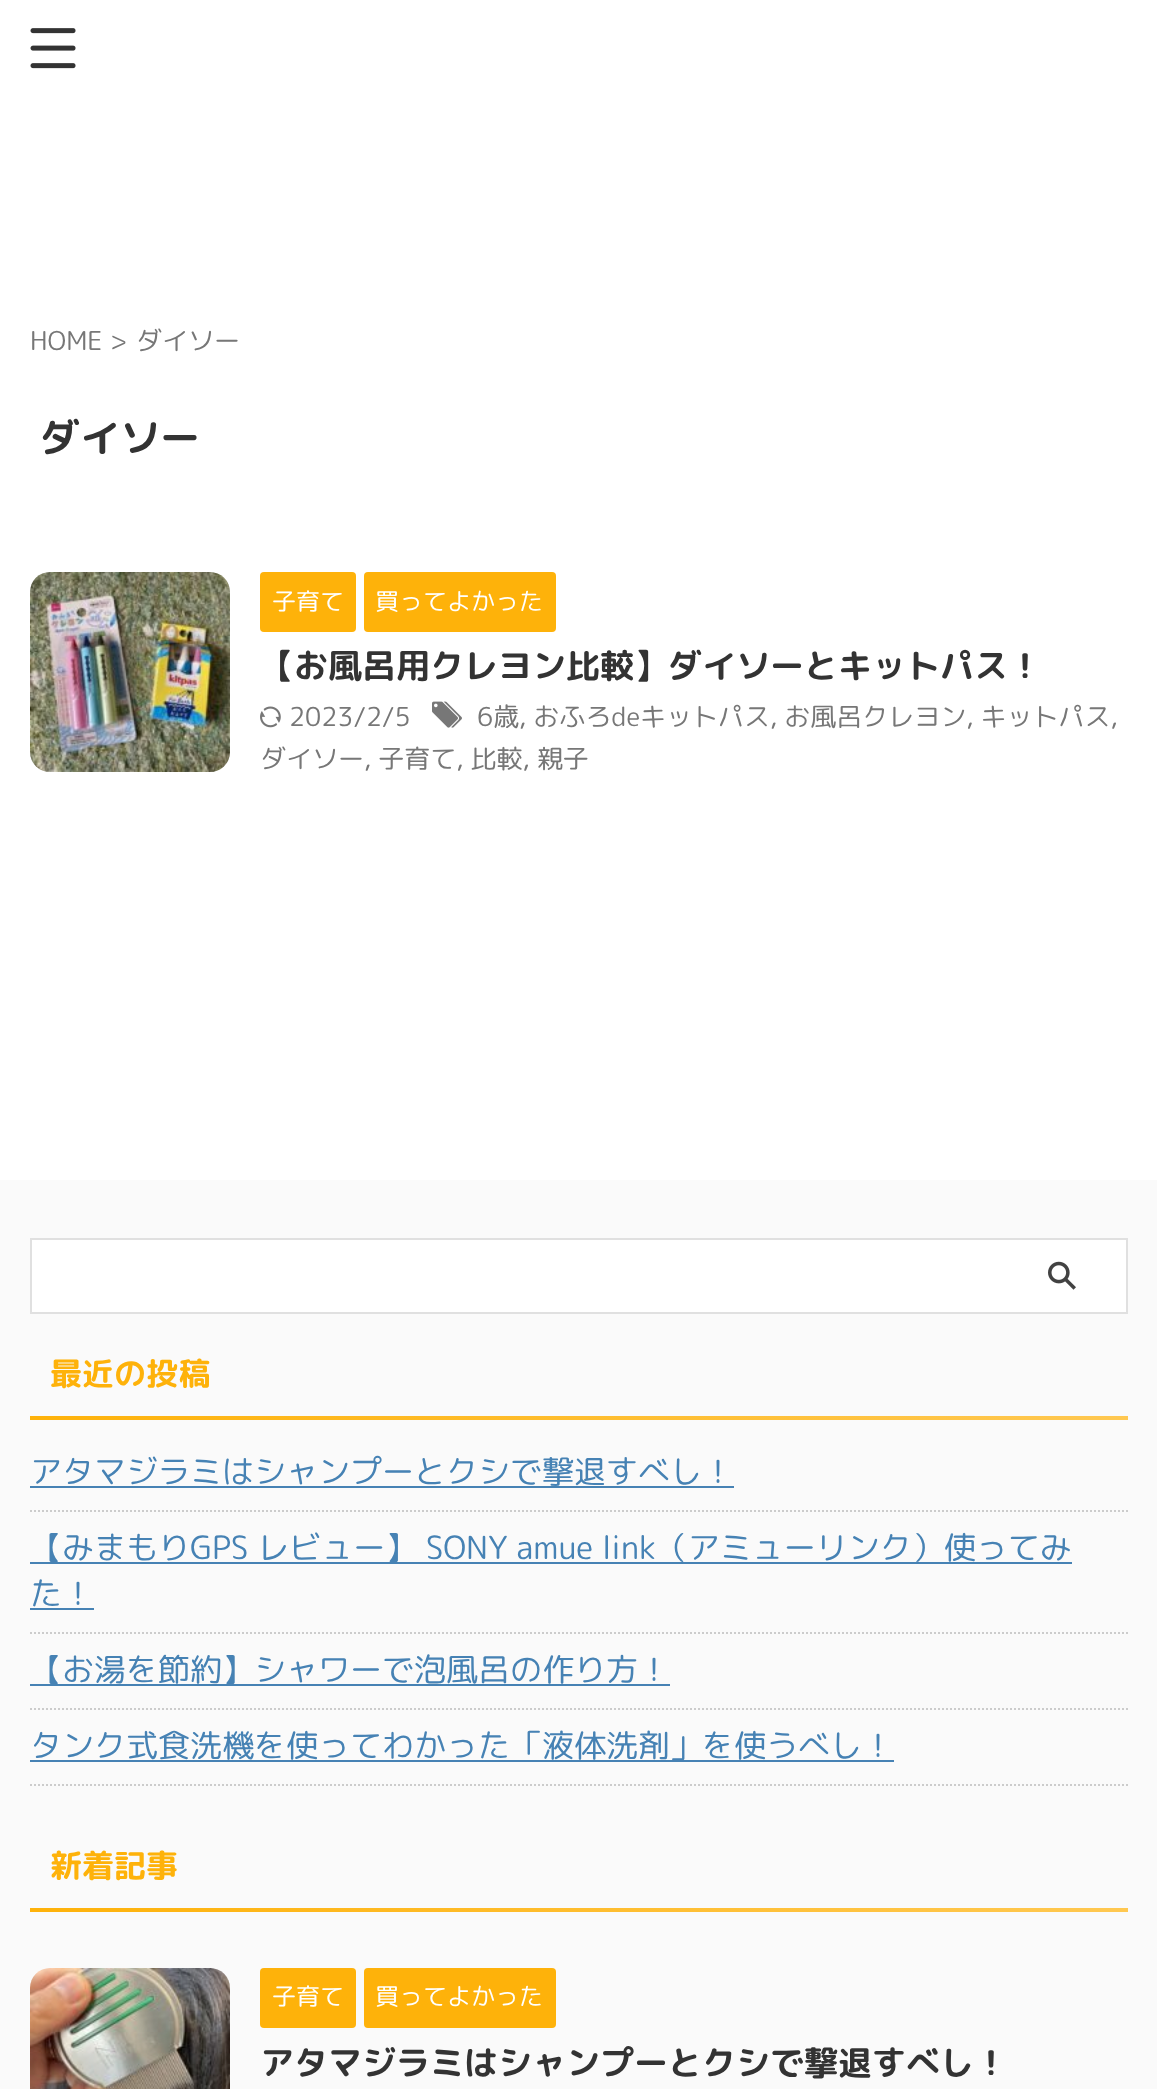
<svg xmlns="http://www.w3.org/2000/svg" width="1157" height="2089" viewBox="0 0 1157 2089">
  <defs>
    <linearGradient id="g1" gradientUnits="userSpaceOnUse" x1="1128" y1="1418" x2="30" y2="1418"><stop offset="0" stop-color="#ffc851"/><stop offset="1" stop-color="#feb20a"/></linearGradient>
    <linearGradient id="g2" gradientUnits="userSpaceOnUse" x1="1128" y1="1910" x2="30" y2="1910"><stop offset="0" stop-color="#ffc851"/><stop offset="1" stop-color="#feb20a"/></linearGradient>
  </defs>
  <rect width="100%" height="100%" fill="#fafafa"/>
  <path d="M0 0h1157v1180H0z" fill="#fff"/>
  <image x="30" y="28" width="46" height="41" href="img/1.png"/>
  <image x="30" y="572" width="200" height="200" href="img/2.png"/>
  <rect x="260" y="572" width="96" height="60" rx="4" fill="#feb20a"/>
  <rect x="364" y="572" width="192" height="60" rx="4" fill="#feb20a"/>
  <image x="260" y="706" width="21" height="22" href="img/3.png"/>
  <image x="432" y="701" width="30" height="27" href="img/4.png"/>
  <path d="M31 1239h1096v74H31z" fill="none" stroke="#e0e0e0" stroke-width="2"/>
  <path d="M32 1240h1094v72H32z" fill="#fff"/>
  <image x="1048" y="1261" width="28" height="29" href="img/5.png"/>
  <path d="M30 1416h1098v4H30z" fill="url(#g1)"/>
  <path d="M30 1511H1128" fill="none" stroke="#ccc" stroke-width="2" stroke-dasharray="2 2"/>
  <path d="M30 1486h704v2H30z" fill="#4682b4"/>
  <path d="M30 1633H1128" fill="none" stroke="#ccc" stroke-width="2" stroke-dasharray="2 2"/>
  <path d="M30 1562h1042v2H30z" fill="#4682b4"/>
  <path d="M30 1608h64v2H30z" fill="#4682b4"/>
  <path d="M30 1709H1128" fill="none" stroke="#ccc" stroke-width="2" stroke-dasharray="2 2"/>
  <path d="M30 1684h640v2H30z" fill="#4682b4"/>
  <path d="M30 1785H1128" fill="none" stroke="#ccc" stroke-width="2" stroke-dasharray="2 2"/>
  <path d="M30 1760h864v2H30z" fill="#4682b4"/>
  <path d="M30 1908h1098v4H30z" fill="url(#g2)"/>
  <image x="30" y="1968" width="200" height="121" href="img/6.png"/>
  <rect x="260" y="1968" width="96" height="60" rx="4" fill="#feb20a"/>
  <rect x="364" y="1968" width="192" height="60" rx="4" fill="#feb20a"/>
  <g font-family="'Rounded Mplus 1c'" font-size="26" fill="#777">
    <text x="30" y="350">HOME &gt;</text>
    <text x="136" y="350">ダイソー</text>
  </g>
  <text x="40" y="452" font-family="'Rounded Mplus 1c Bold'" font-size="40" font-weight="bold" fill="#333">ダイソー</text>
  <g font-family="'Rounded Mplus 1c'" font-size="24" fill="#fff">
    <text x="272" y="610">子育て</text>
    <text x="375" y="610">買ってよかった</text>
  </g>
  <text x="260" y="678" font-family="'Rounded Mplus 1c Bold'" font-size="34" font-weight="bold" fill="#333">【お風呂用クレヨン比較】ダイソーとキットパス！</text>
  <g font-family="'Rounded Mplus 1c'" font-size="26" fill="#777">
    <text x="289" y="726">2023/2/5</text>
    <text x="477" y="726">6歳, おふろdeキットパス, お風呂クレヨン, キットパス,</text>
    <text x="260" y="768">ダイソー, 子育て, 比較, 親子</text>
  </g>
  <text x="50" y="1385" font-family="'Rounded Mplus 1c Bold'" font-size="32" font-weight="bold" fill="#feb20a">最近の投稿</text>
  <g font-family="'Rounded Mplus 1c'" font-size="32" fill="#4682b4">
    <text x="30" y="1483">アタマジラミはシャンプーとクシで撃退すべし！</text>
    <text x="30" y="1559">【みまもりGPS レビュー】 SONY amue link（アミューリンク）使ってみ</text>
    <text x="30" y="1605">た！</text>
    <text x="30" y="1681">【お湯を節約】シャワーで泡風呂の作り方！</text>
    <text x="30" y="1757">タンク式食洗機を使ってわかった「液体洗剤」を使うべし！</text>
  </g>
  <text x="50" y="1877" font-family="'Rounded Mplus 1c Bold'" font-size="32" font-weight="bold" fill="#feb20a">新着記事</text>
  <g font-family="'Rounded Mplus 1c'" font-size="24" fill="#fff">
    <text x="272" y="2005">子育て</text>
    <text x="375" y="2005">買ってよかった</text>
  </g>
  <text x="260" y="2075" font-family="'Rounded Mplus 1c Bold'" font-size="34" font-weight="bold" fill="#333">アタマジラミはシャンプーとクシで撃退すべし！</text>
</svg>
